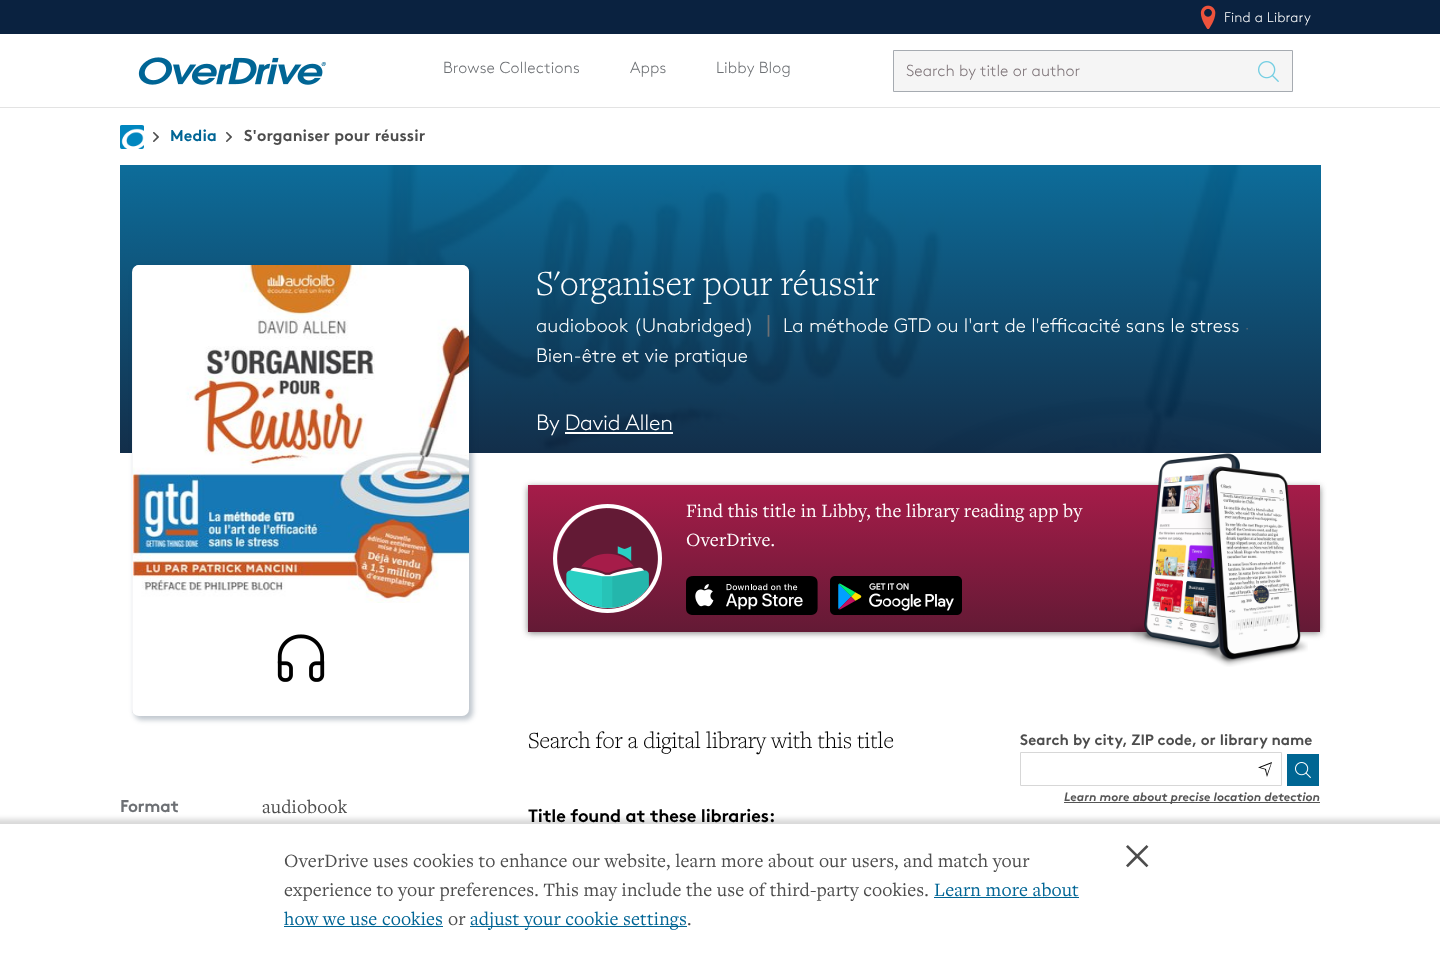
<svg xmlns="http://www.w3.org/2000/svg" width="1440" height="979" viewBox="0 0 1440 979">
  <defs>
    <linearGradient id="g1" gradientUnits="userSpaceOnUse" x1="924" y1="485" x2="924" y2="632"><stop offset="0" stop-color="#a61c49"/><stop offset="1" stop-color="#631a35"/></linearGradient>
  </defs>
  <rect width="100%" height="100%" fill="#fff"/>
  <path d="M0 107h1440v1H0z" fill="#e3e3e3"/>
  <path d="M0 0h1440v34H0z" fill="#0a2240"/>
  <image x="1200" y="5" width="16" height="24" href="img/1.png"/>
  <image x="138" y="57" width="188" height="28" href="img/2.png"/>
  <path d="M893.5 50.5h399v41H893.5z" fill="#f5f5f5" stroke="#a6abb1"/>
  <image x="1258" y="61" width="21" height="21" href="img/3.png"/>
  <image x="120" y="125" width="24" height="24" href="img/4.png"/>
  <image x="153" y="132" width="6" height="10" href="img/5.png"/>
  <image x="226" y="132" width="6" height="10" href="img/5.png"/>
  <image x="120" y="165" width="1201" height="288" href="img/6.png"/>
  <rect x="134" y="267" width="339" height="453" rx="8" fill="#06234040" filter="blur(2.5px)"/>
  <rect x="132" y="265" width="337" height="451" rx="7" fill="#fff"/>
  <path d="M132 269h1v444H132z" fill="#a7a9ac1a"/>
  <image x="133" y="265" width="336" height="338" href="img/7.png"/>
  <image x="277" y="634" width="48" height="48" href="img/8.png"/>
  <path d="M565 432h108v2H565z" fill="#fff"/>
  <path d="M528 487h792v146H528z" fill="#808080" filter="blur(3px)"/>
  <path d="M528 485h792v147H528z" fill="url(#g1)"/>
  <image x="553" y="504" width="109" height="109" href="img/9.png"/>
  <image x="686" y="576" width="132" height="39" href="img/10.png"/>
  <image x="830" y="576" width="132" height="39" href="img/11.png"/>
  <image x="1130" y="453" width="178" height="214" href="img/12.png"/>
  <path d="M1020.5 752.5h261v33H1020.5z" fill="none" stroke="#d7d7d7"/>
  <path d="M1287 754h32v32H1287z" fill="#006693"/>
  <image x="1295" y="762" width="16" height="16" href="img/13.png"/>
  <path d="M1271 763.5L1267 774.5L1266 769L1260.5 767.5L1271 763.5M1272 762L1258 767.5L1265 769.5L1267 777Z" fill="#000"/>
  <path d="M1064 802h256v1H1064z" fill="#555"/>
  <path d="M-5 819h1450v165H-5z" fill="#00000026" filter="blur(2.5px)"/>
  <path d="M0 824h1440v155H0z" fill="#fff"/>
  <path d="M934 897h145v1H934z" fill="#006595"/>
  <path d="M284 926h159v1H284z" fill="#006595"/>
  <path d="M470 926h217v1H470z" fill="#006595"/>
  <text x="1224" y="22" font-family="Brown" font-size="14" font-weight="300" letter-spacing="0.12" fill="#fff">Find a Library</text>
  <g font-family="Brown" font-size="16" font-weight="300" letter-spacing="0.12" fill="#6d7074">
    <text x="443" y="73">Browse Collections</text>
    <text x="630" y="73">Apps</text>
    <text x="716" y="73">Libby Blog</text>
  </g>
  <text x="906" y="76" font-family="Brown" font-size="16" font-weight="300" fill="#7d7377">Search by title or author</text>
  <text x="170" y="141" font-family="Brown" font-size="15.9" font-weight="bold" letter-spacing="0.12" fill="#006595">Media</text>
  <text x="244" y="141" font-family="Brown" font-size="15.9" font-weight="bold" letter-spacing="0.12" fill="#4d4d4d">S'organiser pour réussir</text>
  <text x="536" y="295" font-family="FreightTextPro" font-size="36.5" font-weight="300" fill="#fff">S'organiser pour réussir</text>
  <text x="536" y="332" font-family="Brown" font-size="19.5" font-weight="300" fill="#fff">audiobook (Unabridged)</text>
  <text x="763" y="332" font-family="DejaVu Sans" font-size="22" fill="#6d7074">∣</text>
  <text x="783" y="332" font-family="Brown" font-size="19.5" font-weight="300" fill="#fff">La méthode GTD ou l'art de l'efficacité sans le stress</text>
  <text x="1245" y="332" font-family="Brown" font-size="14" font-weight="300" fill="#6d7074">·</text>
  <text x="536" y="362" font-family="Brown" font-size="19.5" font-weight="300" fill="#fff">Bien-être et vie pratique</text>
  <text x="536" y="430" font-family="Brown" font-size="22" font-weight="300" letter-spacing="-0.25" fill="#fff">By David Allen</text>
  <text x="120" y="812" font-family="Brown" font-size="17" font-weight="bold" letter-spacing="-0.25" fill="#6d7074">Format</text>
  <text x="262" y="813" font-family="FreightTextPro" font-size="19.5" letter-spacing="0.12" fill="#4d4d4d">audiobook</text>
  <g font-family="FreightTextPro" font-size="19.5" letter-spacing="0.12" fill="#fff">
    <text x="686" y="517">Find this title in Libby, the library reading app by</text>
    <text x="686" y="546">OverDrive.</text>
  </g>
  <text x="528" y="748" font-family="FreightTextPro" font-size="24" font-weight="300" letter-spacing="-0.25" fill="#000">Search for a digital library with this title</text>
  <text x="1020" y="745" font-family="Brown" font-size="15" font-weight="bold" fill="#4d4d4d">Search by city, ZIP code, or library name</text>
  <text x="1064" y="801" font-family="Brown" font-size="12" font-weight="bold" font-style="italic" fill="#555">Learn more about precise location detection</text>
  <text x="528" y="822" font-family="Brown" font-size="18" font-weight="bold" letter-spacing="-0.2" fill="#000">Title found at these libraries:</text>
  <g font-family="FreightTextPro" font-size="19.5" letter-spacing="0.12" fill="#4d4d4d">
    <text x="284" y="867">OverDrive uses cookies to enhance our website, learn more about our users, and match your</text>
    <text x="284" y="896">experience to your preferences. This may include the use of third-party cookies.</text>
  </g>
  <g font-family="FreightTextPro" font-size="19.5" letter-spacing="0.12" fill="#006595">
    <text x="934" y="896">Learn more about</text>
    <text x="284" y="925">how we use cookies</text>
  </g>
  <text x="448" y="925" font-family="FreightTextPro" font-size="19.5" letter-spacing="0.12" fill="#4d4d4d">or</text>
  <text x="470" y="925" font-family="FreightTextPro" font-size="19.5" letter-spacing="0.12" fill="#006595">adjust your cookie settings</text>
  <text x="687" y="925" font-family="FreightTextPro" font-size="19.5" letter-spacing="0.12" fill="#4d4d4d">.</text>
  <text x="1124" y="869" font-family="FreightTextPro" font-size="55" fill="#4d4d4d">×</text>
</svg>
